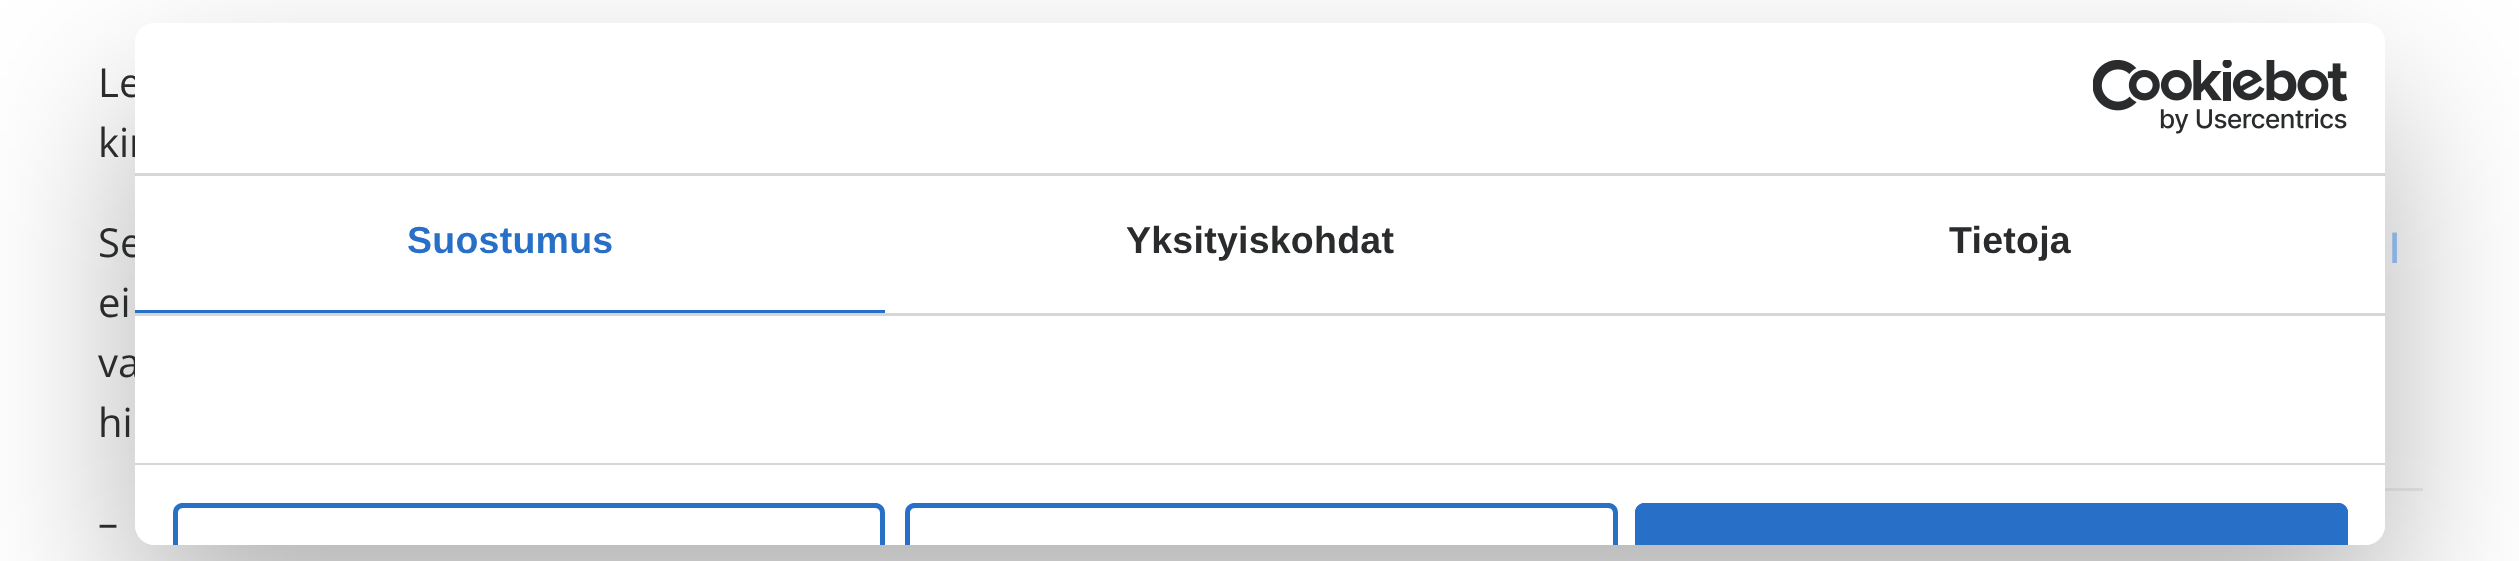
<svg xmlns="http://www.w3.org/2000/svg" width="2519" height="561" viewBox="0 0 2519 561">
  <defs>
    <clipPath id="clip1"><path d="M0 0H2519V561H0ZM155 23H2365C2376 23 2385 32 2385 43V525C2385 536 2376 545 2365 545H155C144 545 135 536 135 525V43C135 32 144 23 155 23Z" clip-rule="evenodd"/></clipPath>
  </defs>
  <rect width="100%" height="100%" fill="#fff"/>
  <path d="M2385 488h38v3H2385z" fill="#edeff1"/>
  <g clip-path="url(#clip1)">
    <rect x="135" y="103" width="2250" height="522" rx="20" fill="#0000004d" filter="blur(85px)"/>
  </g>
  <g font-family="Open Sans" font-size="40" fill="#292b2c">
    <text x="98" y="97">Le</text>
    <text x="98" y="157">kir</text>
    <text x="98" y="257">Se</text>
    <text x="98" y="317">ei</text>
    <text x="98" y="377">va</text>
    <text x="98" y="437">hi</text>
    <text x="98" y="537">–</text>
  </g>
  <text x="2389" y="263" font-family="Open Sans" font-size="40" font-weight="600" fill="#88afe0">l</text>
  <rect x="135" y="23" width="2250" height="522" rx="20" fill="#fff"/>
  <path d="M135 173h2250v3H135z" fill="#d6d6d6"/>
  <image x="2093" y="60" width="255" height="74" href="img/1.png"/>
  <path d="M135 313h2250v3H135z" fill="#d6d6d6"/>
  <path d="M135 310h750v3H135z" fill="#286fc7"/>
  <text x="407" y="253" font-family="Liberation Sans" font-size="37.5" font-weight="bold" letter-spacing="0.25" fill="#286fc7">Suostumus</text>
  <g font-family="Liberation Sans" font-size="37.5" font-weight="bold" letter-spacing="0.25" fill="#292b2c">
    <text x="1126" y="253">Yksityiskohdat</text>
    <text x="1949" y="253">Tietoja</text>
  </g>
  <path d="M135 463h2250v2H135z" fill="#d6d6d6"/>
  <path d="M183 503C177 503 173 507 173 513V545H178V513C178 510 180 508 183 508H875C878 508 880 510 880 513V545H885V513C885 507 881 503 875 503Z" fill="#286fc7"/>
  <path d="M915 503C909 503 905 507 905 513V545H910V513C910 510 912 508 915 508H1608C1611 508 1613 510 1613 513V545H1618V513C1618 507 1614 503 1608 503Z" fill="#286fc7"/>
  <path d="M1645 503H2338C2343.5 503 2348 507.5 2348 513V545H1635V513C1635 507.5 1639.5 503 1645 503Z" fill="#286fc7"/>
  <path d="M1645 503C1639 503 1635 507 1635 513V545H1640V513C1640 510 1642 508 1645 508H2338C2341 508 2343 510 2343 513V545H2348V513C2348 507 2344 503 2338 503Z" fill="#286fc7"/>
</svg>
